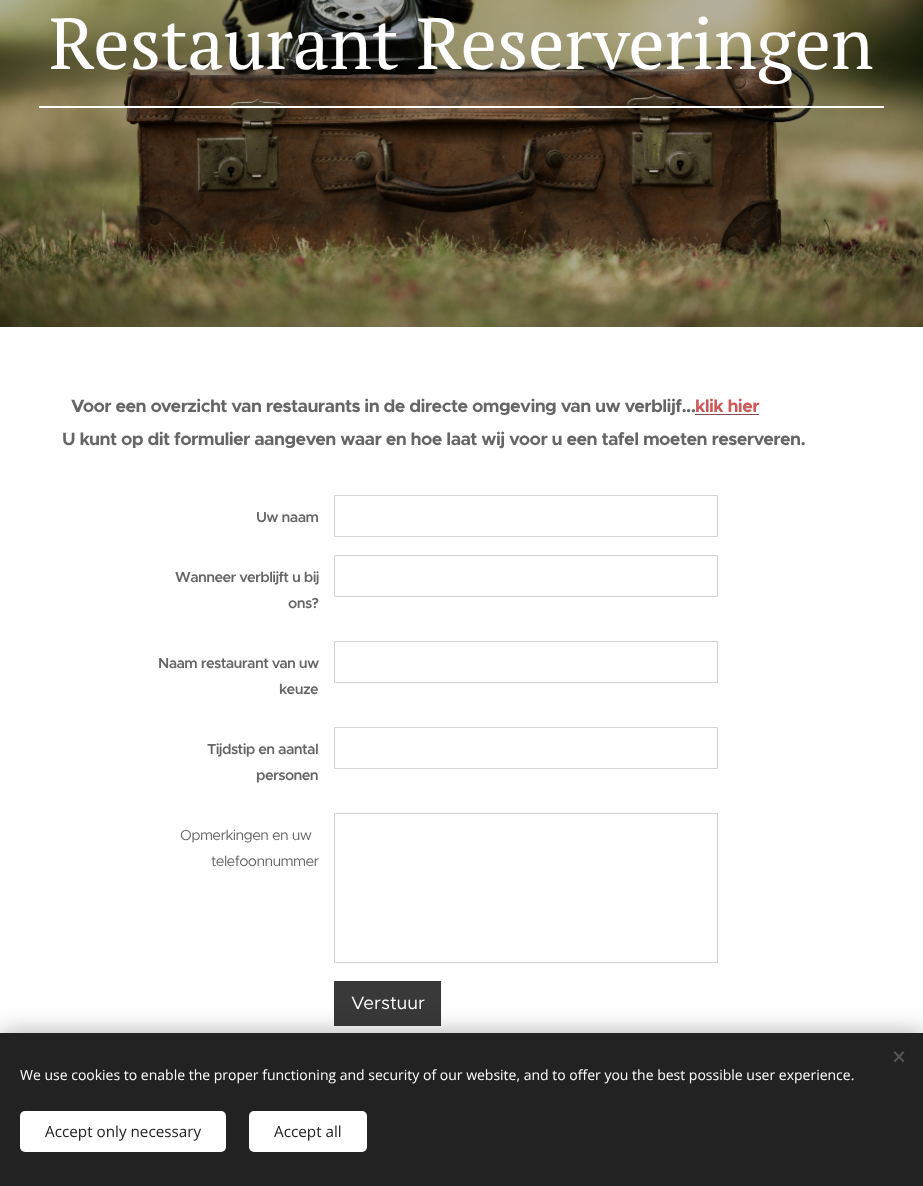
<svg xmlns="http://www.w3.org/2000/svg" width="923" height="1186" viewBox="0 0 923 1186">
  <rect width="100%" height="100%" fill="#fff"/>
  <image x="0" y="0" width="923" height="327" href="img/1.png"/>
  <path d="M39 106h845v2H39z" fill="#fff"/>
  <path d="M334.5 495.5h383v41H334.5z" fill="none" stroke="#d4d4d4"/>
  <path d="M334.5 555.5h383v41H334.5z" fill="none" stroke="#d4d4d4"/>
  <path d="M334.5 641.5h383v41H334.5z" fill="none" stroke="#d4d4d4"/>
  <path d="M334.5 727.5h383v41H334.5z" fill="none" stroke="#d4d4d4"/>
  <path d="M334.5 813.5h383v149H334.5z" fill="none" stroke="#d4d4d4"/>
  <path d="M334 981h107v45H334z" fill="#393939"/>
  <path d="M0 1033h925v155H0z" fill="#00000054" filter="blur(12.5px)"/>
  <path d="M0 1033h923v153H0z" fill="#222"/>
  <path d="M893.5 1061L903 1051L904.5 1052.5L895 1062.5Z" fill="#555"/>
  <path d="M895 1051L904.5 1061L903 1062.5L893.5 1052.5Z" fill="#555"/>
  <rect x="20" y="1111" width="206" height="41" rx="5" fill="#fff"/>
  <rect x="249" y="1111" width="118" height="41" rx="5" fill="#fff"/>
  <text x="49" y="69" font-family="PT Serif" font-size="72" fill="#fff">Restaurant Reserveringen</text>
  <text x="71" y="412" font-family="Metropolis" font-size="18" font-weight="bold" letter-spacing="-0.6" fill="#666">Voor een overzicht van restaurants in de directe omgeving van uw verblijf...</text>
  <path d="M695 414h64v1H695z" fill="#834a4a"/>
  <text x="695" y="412" font-family="Metropolis" font-size="18" font-weight="bold" letter-spacing="-0.6" fill="#cc5a5a">klik hier</text>
  <text x="62" y="445" font-family="Metropolis" font-size="18" font-weight="bold" letter-spacing="-0.6" fill="#666">U kunt op dit formulier aangeven waar en hoe laat wij voor u een tafel moeten reserveren.</text>
  <g font-family="Metropolis" font-size="14.6" font-weight="600" letter-spacing="-0.6" fill="#666">
    <text x="256" y="522">Uw naam</text>
    <text x="175" y="582">Wanneer verblijft u bij</text>
    <text x="288" y="608">ons?</text>
    <text x="158" y="668">Naam restaurant van uw</text>
    <text x="279" y="694">keuze</text>
    <text x="207" y="754">Tijdstip en aantal</text>
    <text x="256" y="780">personen</text>
  </g>
  <g font-family="Metropolis" font-size="14.6" letter-spacing="-0.6" fill="#666">
    <text x="180" y="840">Opmerkingen en uw</text>
    <text x="211" y="866">telefoonnummer</text>
  </g>
  <text x="351" y="1009" font-family="Metropolis" font-size="18" fill="#fff">Verstuur</text>
  <text x="20" y="1080" font-family="Open Sans" font-size="14" fill="#fff">We use cookies to enable the proper functioning and security of our website, and to offer you the best possible user experience.</text>
  <g font-family="Open Sans" font-size="15.25" fill="#222">
    <text x="45" y="1137">Accept only necessary</text>
    <text x="274" y="1137">Accept all</text>
  </g>
</svg>
